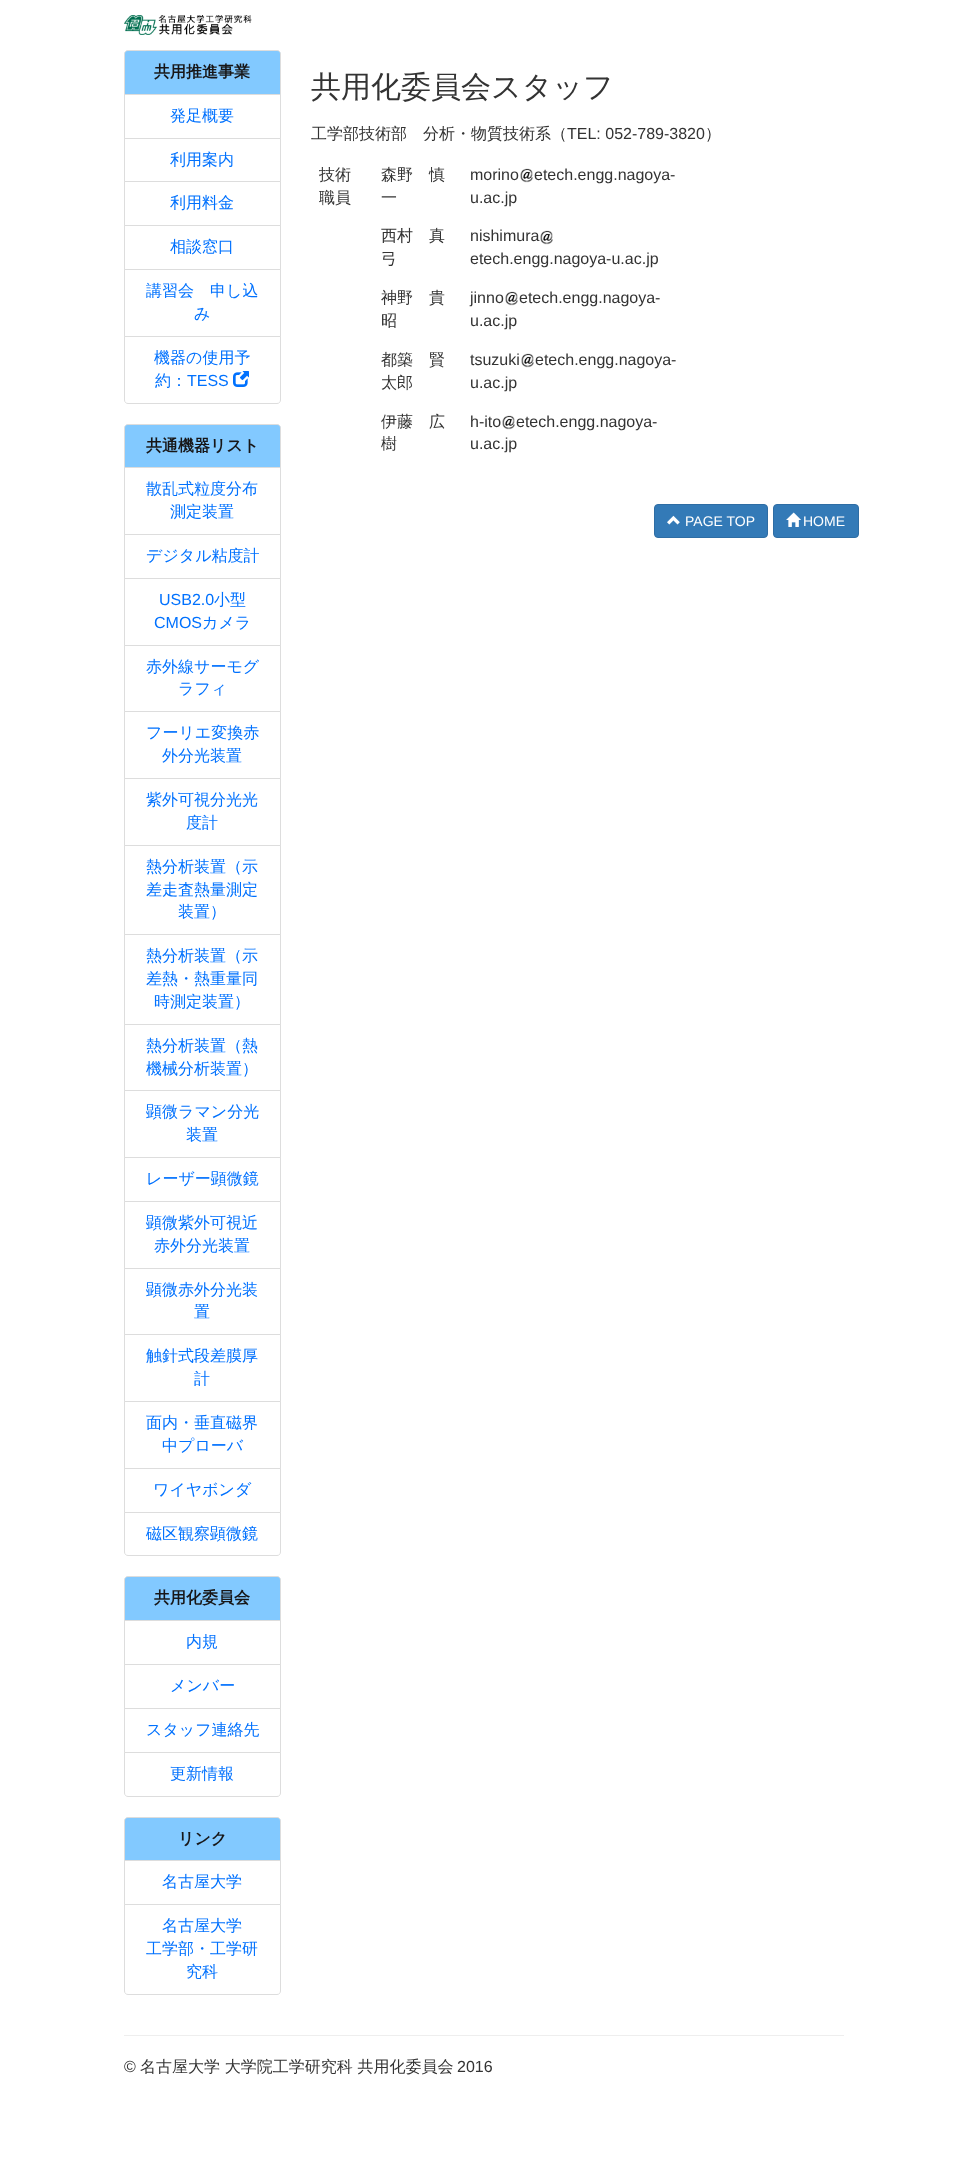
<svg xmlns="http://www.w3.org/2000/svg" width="967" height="2180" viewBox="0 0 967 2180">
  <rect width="100%" height="100%" fill="#fff"/>
  <image x="124" y="15" width="128" height="20" href="img/1.png"/>
  <path d="M128 50.5H277C279 50.5 280.5 52 280.5 54V94.5H124.5V54C124.5 52 126 50.5 128 50.5Z" fill="#82c9ff" stroke="#ddd"/>
  <path d="M124.5 94.5h156v44H124.5z" fill="none" stroke="#ddd"/>
  <path d="M124.5 138.5h156v43H124.5z" fill="none" stroke="#ddd"/>
  <path d="M124.5 181.5h156v44H124.5z" fill="none" stroke="#ddd"/>
  <path d="M124.5 225.5h156v44H124.5z" fill="none" stroke="#ddd"/>
  <path d="M124.5 269.5h156v67H124.5z" fill="none" stroke="#ddd"/>
  <path d="M124.5 336.5H280.5V400C280.5 402 279 403.5 277 403.5H128C126 403.5 124.5 402 124.5 400Z" fill="#fff" stroke="#ddd"/>
  <image x="233" y="371" width="16" height="16" href="img/2.png"/>
  <path d="M128 424.5H277C279 424.5 280.5 426 280.5 428V467.5H124.5V428C124.5 426 126 424.5 128 424.5Z" fill="#82c9ff" stroke="#ddd"/>
  <path d="M124.5 467.5h156v67H124.5z" fill="none" stroke="#ddd"/>
  <path d="M124.5 534.5h156v44H124.5z" fill="none" stroke="#ddd"/>
  <path d="M124.5 578.5h156v67H124.5z" fill="none" stroke="#ddd"/>
  <path d="M124.5 645.5h156v66H124.5z" fill="none" stroke="#ddd"/>
  <path d="M124.5 711.5h156v67H124.5z" fill="none" stroke="#ddd"/>
  <path d="M124.5 778.5h156v67H124.5z" fill="none" stroke="#ddd"/>
  <path d="M124.5 845.5h156v89H124.5z" fill="none" stroke="#ddd"/>
  <path d="M124.5 934.5h156v90H124.5z" fill="none" stroke="#ddd"/>
  <path d="M124.5 1024.5h156v66H124.5z" fill="none" stroke="#ddd"/>
  <path d="M124.5 1090.5h156v67H124.5z" fill="none" stroke="#ddd"/>
  <path d="M124.5 1157.5h156v44H124.5z" fill="none" stroke="#ddd"/>
  <path d="M124.5 1201.5h156v67H124.5z" fill="none" stroke="#ddd"/>
  <path d="M124.5 1268.5h156v66H124.5z" fill="none" stroke="#ddd"/>
  <path d="M124.5 1334.5h156v67H124.5z" fill="none" stroke="#ddd"/>
  <path d="M124.5 1401.5h156v67H124.5z" fill="none" stroke="#ddd"/>
  <path d="M124.5 1468.5h156v44H124.5z" fill="none" stroke="#ddd"/>
  <path d="M124.5 1512.5H280.5V1552C280.5 1554 279 1555.5 277 1555.5H128C126 1555.5 124.5 1554 124.5 1552Z" fill="#fff" stroke="#ddd"/>
  <path d="M128 1576.5H277C279 1576.5 280.5 1578 280.5 1580V1620.5H124.5V1580C124.5 1578 126 1576.5 128 1576.5Z" fill="#82c9ff" stroke="#ddd"/>
  <path d="M124.5 1620.5h156v44H124.5z" fill="none" stroke="#ddd"/>
  <path d="M124.5 1664.5h156v44H124.5z" fill="none" stroke="#ddd"/>
  <path d="M124.5 1708.5h156v44H124.5z" fill="none" stroke="#ddd"/>
  <path d="M124.5 1752.5H280.5V1793C280.5 1795 279 1796.5 277 1796.5H128C126 1796.5 124.5 1795 124.5 1793Z" fill="#fff" stroke="#ddd"/>
  <path d="M128 1817.5H277C279 1817.5 280.5 1819 280.5 1821V1860.5H124.5V1821C124.5 1819 126 1817.5 128 1817.5Z" fill="#82c9ff" stroke="#ddd"/>
  <path d="M124.5 1860.5h156v44H124.5z" fill="none" stroke="#ddd"/>
  <path d="M124.5 1904.5H280.5V1991C280.5 1993 279 1994.5 277 1994.5H128C126 1994.5 124.5 1993 124.5 1991Z" fill="#fff" stroke="#ddd"/>
  <image x="520" y="168" width="13" height="15" href="img/3.png"/>
  <image x="540" y="230" width="13" height="15" href="img/4.png"/>
  <image x="505" y="291" width="13" height="15" href="img/4.png"/>
  <image x="521" y="353" width="13" height="15" href="img/4.png"/>
  <image x="502" y="415" width="13" height="15" href="img/3.png"/>
  <rect x="654.5" y="504.5" width="113" height="33" rx="3.5" fill="#337ab7" stroke="#2e6da4"/>
  <image x="667" y="515" width="13" height="10" href="img/5.png"/>
  <rect x="773.5" y="504.5" width="85" height="33" rx="3.5" fill="#337ab7" stroke="#2e6da4"/>
  <image x="786" y="512" width="15" height="15" href="img/6.png"/>
  <path d="M124 2035h720v1H124z" fill="#eee"/>
  <text x="154" y="77" font-family="WenQuanYi Zen Hei" font-size="16" font-weight="bold" fill="#171617">共用推進事業</text>
  <g font-family="WenQuanYi Zen Hei" font-size="16" font-weight="500" fill="#0071fe">
    <text x="170" y="121">発足概要</text>
    <text x="170" y="165">利用案内</text>
    <text x="170" y="208">利用料金</text>
    <text x="170" y="252">相談窓口</text>
    <text x="146" y="296">講習会　申し込</text>
    <text x="194" y="319">み</text>
    <text x="154" y="363">機器の使用予</text>
    <text x="155" y="386">約：</text>
  </g>
  <text x="187" y="386" font-family="Liberation Sans" font-size="16" fill="#0071fe">TESS</text>
  <text x="146" y="451" font-family="WenQuanYi Zen Hei" font-size="16" font-weight="bold" fill="#171617">共通機器リスト</text>
  <g font-family="WenQuanYi Zen Hei" font-size="16" font-weight="500" fill="#0071fe">
    <text x="146" y="494">散乱式粒度分布</text>
    <text x="170" y="517">測定装置</text>
    <text x="146" y="561">デジタル粘度計</text>
  </g>
  <text x="159" y="605" font-family="Liberation Sans" font-size="16" fill="#0071fe">USB2.0</text>
  <text x="214" y="605" font-family="WenQuanYi Zen Hei" font-size="16" font-weight="500" fill="#0071fe">小型</text>
  <text x="154" y="628" font-family="Liberation Sans" font-size="16" fill="#0071fe">CMOS</text>
  <g font-family="WenQuanYi Zen Hei" font-size="16" font-weight="500" fill="#0071fe">
    <text x="202" y="628">カメラ</text>
    <text x="146" y="672">赤外線サーモグ</text>
    <text x="178" y="694">ラフィ</text>
    <text x="146" y="738">フーリエ変換赤</text>
    <text x="162" y="761">外分光装置</text>
    <text x="146" y="805">紫外可視分光光</text>
    <text x="186" y="828">度計</text>
    <text x="146" y="872">熱分析装置（示</text>
    <text x="146" y="895">差走査熱量測定</text>
    <text x="178" y="917">装置）</text>
    <text x="146" y="961">熱分析装置（示</text>
    <text x="146" y="984">差熱・熱重量同</text>
    <text x="154" y="1007">時測定装置）</text>
    <text x="146" y="1051">熱分析装置（熱</text>
    <text x="146" y="1074">機械分析装置）</text>
    <text x="146" y="1117">顕微ラマン分光</text>
    <text x="186" y="1140">装置</text>
    <text x="146" y="1184">レーザー顕微鏡</text>
    <text x="146" y="1228">顕微紫外可視近</text>
    <text x="154" y="1251">赤外分光装置</text>
    <text x="146" y="1295">顕微赤外分光装</text>
    <text x="194" y="1317">置</text>
    <text x="146" y="1361">触針式段差膜厚</text>
    <text x="194" y="1384">計</text>
    <text x="146" y="1428">面内・垂直磁界</text>
    <text x="162" y="1451">中プローバ</text>
    <text x="153" y="1495">ワイヤボンダ</text>
    <text x="146" y="1539">磁区観察顕微鏡</text>
  </g>
  <text x="154" y="1603" font-family="WenQuanYi Zen Hei" font-size="16" font-weight="bold" fill="#171617">共用化委員会</text>
  <g font-family="WenQuanYi Zen Hei" font-size="16" font-weight="500" fill="#0071fe">
    <text x="186" y="1647">内規</text>
    <text x="170" y="1691">メンバー</text>
    <text x="146" y="1735">スタッフ連絡先</text>
    <text x="170" y="1779">更新情報</text>
  </g>
  <text x="178" y="1844" font-family="WenQuanYi Zen Hei" font-size="16" font-weight="bold" fill="#171617">リンク</text>
  <g font-family="WenQuanYi Zen Hei" font-size="16" font-weight="500" fill="#0071fe">
    <text x="162" y="1887">名古屋大学</text>
    <text x="162" y="1931">名古屋大学</text>
    <text x="146" y="1954">工学部・工学研</text>
    <text x="186" y="1977">究科</text>
  </g>
  <text x="311" y="97" font-family="WenQuanYi Zen Hei" font-size="30" font-weight="500" fill="#333">共用化委員会スタッフ</text>
  <text x="311" y="139" font-family="WenQuanYi Zen Hei" font-size="16" font-weight="500" fill="#333">工学部技術部　分析・物質技術系（</text>
  <text x="567" y="139" font-family="Liberation Sans" font-size="16" fill="#333">TEL: 052-789-3820</text>
  <g font-family="WenQuanYi Zen Hei" font-size="16" font-weight="500" fill="#333">
    <text x="705" y="139">）</text>
    <text x="319" y="180">技術</text>
    <text x="319" y="203">職員</text>
    <text x="381" y="180">森野　慎</text>
    <text x="381" y="203">一</text>
  </g>
  <g font-family="Liberation Sans" font-size="16" fill="#333">
    <text x="470" y="180">morino</text>
    <text x="534" y="180">etech.engg.nagoya-</text>
    <text x="470" y="203">u.ac.jp</text>
  </g>
  <g font-family="WenQuanYi Zen Hei" font-size="16" font-weight="500" fill="#333">
    <text x="381" y="241">西村　真</text>
    <text x="381" y="264">弓</text>
  </g>
  <g font-family="Liberation Sans" font-size="16" fill="#333">
    <text x="470" y="241">nishimura</text>
    <text x="470" y="264">etech.engg.nagoya-u.ac.jp</text>
  </g>
  <g font-family="WenQuanYi Zen Hei" font-size="16" font-weight="500" fill="#333">
    <text x="381" y="303">神野　貴</text>
    <text x="381" y="326">昭</text>
  </g>
  <g font-family="Liberation Sans" font-size="16" fill="#333">
    <text x="470" y="303">jinno</text>
    <text x="519" y="303">etech.engg.nagoya-</text>
    <text x="470" y="326">u.ac.jp</text>
  </g>
  <g font-family="WenQuanYi Zen Hei" font-size="16" font-weight="500" fill="#333">
    <text x="381" y="365">都築　賢</text>
    <text x="381" y="388">太郎</text>
  </g>
  <g font-family="Liberation Sans" font-size="16" fill="#333">
    <text x="470" y="365">tsuzuki</text>
    <text x="535" y="365">etech.engg.nagoya-</text>
    <text x="470" y="388">u.ac.jp</text>
  </g>
  <g font-family="WenQuanYi Zen Hei" font-size="16" font-weight="500" fill="#333">
    <text x="381" y="427">伊藤　広</text>
    <text x="381" y="449">樹</text>
  </g>
  <g font-family="Liberation Sans" font-size="16" fill="#333">
    <text x="470" y="427">h-ito</text>
    <text x="516" y="427">etech.engg.nagoya-</text>
    <text x="470" y="449">u.ac.jp</text>
  </g>
  <g font-family="Liberation Sans" font-size="14" fill="#fff">
    <text x="685" y="526">PAGE TOP</text>
    <text x="803" y="526">HOME</text>
  </g>
  <text x="124" y="2072" font-family="Liberation Sans" font-size="16" fill="#333">©</text>
  <text x="140" y="2072" font-family="WenQuanYi Zen Hei" font-size="16" font-weight="500" fill="#333">名古屋大学 大学院工学研究科 共用化委員会</text>
  <text x="457" y="2072" font-family="Liberation Sans" font-size="16" fill="#333">2016</text>
</svg>
